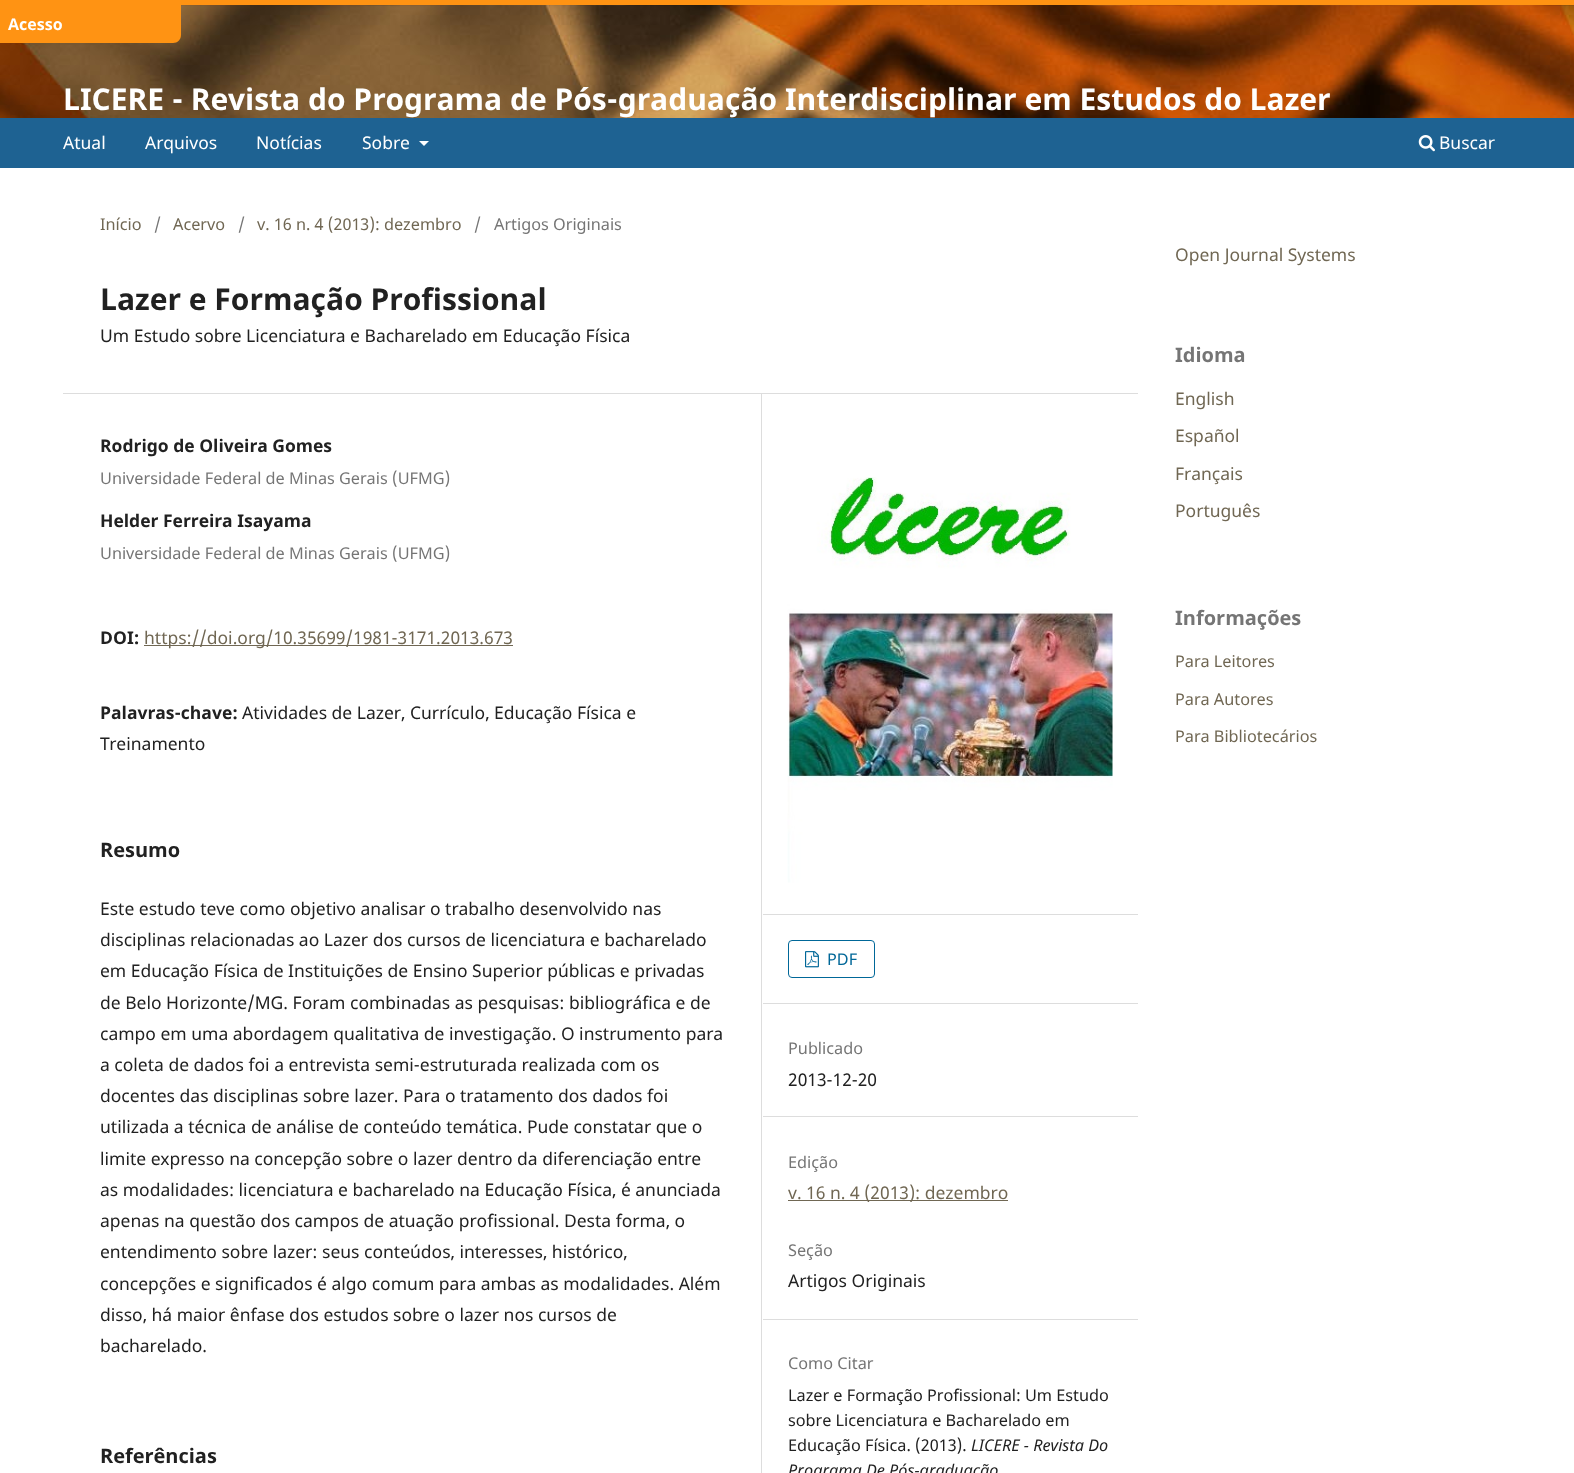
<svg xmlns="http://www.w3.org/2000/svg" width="1574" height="1473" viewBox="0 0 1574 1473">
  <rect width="100%" height="100%" fill="#fff"/>
  <image x="0" y="5" width="1574" height="113" href="img/1.png"/>
  <path d="M0 0h1574v5H0z" fill="#ff9313"/>
  <path d="M0 118h1574v50H0z" fill="#1e6292"/>
  <path d="M-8 5H181V35C181 39.5 177.5 43 173 43H0C-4.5 43-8 39.5-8 35Z" fill="#ff9313"/>
  <path d="M419 141H429L424 146Z" fill="#fff"/>
  <image x="1418" y="135" width="17" height="17" href="img/2.png"/>
  <path d="M63 393h1075v1H63z" fill="#ddd"/>
  <path d="M761 394h1v1079H761z" fill="#ddd"/>
  <path d="M144 645h369v1H144z" fill="#706753"/>
  <path d="M763 914h375v1H763z" fill="#ddd"/>
  <image x="787" y="477" width="326" height="406" href="img/3.png"/>
  <path d="M763 1003h375v1H763z" fill="#ddd"/>
  <rect x="788.5" y="940.5" width="86" height="37" rx="3.5" fill="none" stroke="#006798"/>
  <image x="805" y="951" width="14" height="17" href="img/4.png"/>
  <path d="M763 1116h375v1H763z" fill="#ddd"/>
  <path d="M763 1319h375v1H763z" fill="#ddd"/>
  <path d="M788 1200h220v1H788z" fill="#706753"/>
  <text x="8" y="30" font-family="Noto Sans" font-size="16" font-weight="bold" fill="#fff">Acesso</text>
  <g font-family="Noto Sans" font-size="17.5" fill="#fff">
    <text x="63" y="149">Atual</text>
    <text x="145" y="149">Arquivos</text>
    <text x="256" y="149">Notícias</text>
    <text x="362" y="149">Sobre</text>
    <text x="1439" y="149">Buscar</text>
  </g>
  <text x="63" y="110" font-family="Noto Sans" font-size="30" font-weight="bold" fill="#fff">LICERE - Revista do Programa de Pós-graduação Interdisciplinar em Estudos do Lazer</text>
  <text x="100" y="230" font-family="Noto Sans" font-size="16.25" fill="#706753">Início</text>
  <text x="154" y="230" font-family="Noto Sans" font-size="16.25" fill="#757575">/</text>
  <text x="173" y="230" font-family="Noto Sans" font-size="16.25" fill="#706753">Acervo</text>
  <text x="238" y="230" font-family="Noto Sans" font-size="16.25" fill="#757575">/</text>
  <text x="257" y="230" font-family="Noto Sans" font-size="16.25" fill="#706753">v. 16 n. 4 (2013): dezembro</text>
  <g font-family="Noto Sans" font-size="16.25" fill="#757575">
    <text x="474" y="230">/</text>
    <text x="494" y="230">Artigos Originais</text>
  </g>
  <text x="100" y="310" font-family="Noto Sans" font-size="30" font-weight="bold" fill="#212121">Lazer e Formação Profissional</text>
  <text x="100" y="342" font-family="Noto Sans" font-size="17.5" fill="#212121">Um Estudo sobre Licenciatura e Bacharelado em Educação Física</text>
  <text x="100" y="452" font-family="Noto Sans" font-size="17.5" font-weight="bold" fill="#212121">Rodrigo de Oliveira Gomes</text>
  <text x="100" y="484" font-family="Noto Sans" font-size="16.25" fill="#757575">Universidade Federal de Minas Gerais (UFMG)</text>
  <text x="100" y="527" font-family="Noto Sans" font-size="17.5" font-weight="bold" fill="#212121">Helder Ferreira Isayama</text>
  <text x="100" y="559" font-family="Noto Sans" font-size="16.25" fill="#757575">Universidade Federal de Minas Gerais (UFMG)</text>
  <text x="100" y="644" font-family="Noto Sans" font-size="17.5" font-weight="bold" fill="#212121">DOI:</text>
  <text x="144" y="644" font-family="Noto Sans" font-size="17.5" fill="#706753">https://doi.org/10.35699/1981-3171.2013.673</text>
  <text x="100" y="719" font-family="Noto Sans" font-size="17.5" font-weight="bold" fill="#212121">Palavras-chave:</text>
  <g font-family="Noto Sans" font-size="17.5" fill="#212121">
    <text x="242" y="719">Atividades de Lazer, Currículo, Educação Física e</text>
    <text x="100" y="750">Treinamento</text>
  </g>
  <text x="100" y="857" font-family="Noto Sans" font-size="20" font-weight="bold" fill="#212121">Resumo</text>
  <g font-family="Noto Sans" font-size="17.5" fill="#212121">
    <text x="100" y="915">Este estudo teve como objetivo analisar o trabalho desenvolvido nas</text>
    <text x="100" y="946">disciplinas relacionadas ao Lazer dos cursos de licenciatura e bacharelado</text>
    <text x="100" y="977">em Educação Física de Instituições de Ensino Superior públicas e privadas</text>
    <text x="100" y="1009">de Belo Horizonte/MG. Foram combinadas as pesquisas: bibliográfica e de</text>
    <text x="100" y="1040">campo em uma abordagem qualitativa de investigação. O instrumento para</text>
    <text x="100" y="1071">a coleta de dados foi a entrevista semi-estruturada realizada com os</text>
    <text x="100" y="1102">docentes das disciplinas sobre lazer. Para o tratamento dos dados foi</text>
    <text x="100" y="1133">utilizada a técnica de análise de conteúdo temática. Pude constatar que o</text>
    <text x="100" y="1165">limite expresso na concepção sobre o lazer dentro da diferenciação entre</text>
    <text x="100" y="1196">as modalidades: licenciatura e bacharelado na Educação Física, é anunciada</text>
    <text x="100" y="1227">apenas na questão dos campos de atuação profissional. Desta forma, o</text>
    <text x="100" y="1258">entendimento sobre lazer: seus conteúdos, interesses, histórico,</text>
    <text x="100" y="1290">concepções e significados é algo comum para ambas as modalidades. Além</text>
    <text x="100" y="1321">disso, há maior ênfase dos estudos sobre o lazer nos cursos de</text>
    <text x="100" y="1352">bacharelado.</text>
  </g>
  <text x="100" y="1463" font-family="Noto Sans" font-size="20" font-weight="bold" fill="#212121">Referências</text>
  <text x="827" y="965" font-family="Noto Sans" font-size="16.25" fill="#006798">PDF</text>
  <text x="788" y="1054" font-family="Noto Sans" font-size="16.25" fill="#757575">Publicado</text>
  <text x="788" y="1086" font-family="Noto Sans" font-size="17.5" fill="#212121">2013-12-20</text>
  <text x="788" y="1168" font-family="Noto Sans" font-size="16.25" fill="#757575">Edição</text>
  <text x="788" y="1199" font-family="Noto Sans" font-size="17.5" fill="#706753">v. 16 n. 4 (2013): dezembro</text>
  <text x="788" y="1256" font-family="Noto Sans" font-size="16.25" fill="#757575">Seção</text>
  <text x="788" y="1287" font-family="Noto Sans" font-size="17.5" fill="#212121">Artigos Originais</text>
  <text x="788" y="1369" font-family="Noto Sans" font-size="16.25" fill="#757575">Como Citar</text>
  <g font-family="Noto Sans" font-size="16.25" fill="#212121">
    <text x="788" y="1401">Lazer e Formação Profissional: Um Estudo</text>
    <text x="788" y="1426">sobre Licenciatura e Bacharelado em</text>
    <text x="788" y="1451">Educação Física. (2013).</text>
  </g>
  <g font-family="Noto Sans" font-size="16.25" font-style="italic" fill="#212121">
    <text x="971" y="1451">LICERE - Revista Do</text>
    <text x="788" y="1476">Programa De Pós-graduação</text>
  </g>
  <text x="1175" y="261" font-family="Noto Sans" font-size="17.5" fill="#706753">Open Journal Systems</text>
  <text x="1175" y="362" font-family="Noto Sans" font-size="20" font-weight="bold" fill="#757575">Idioma</text>
  <g font-family="Noto Sans" font-size="17.5" fill="#706753">
    <text x="1175" y="405">English</text>
    <text x="1175" y="442">Español</text>
    <text x="1175" y="480">Français</text>
    <text x="1175" y="517">Português</text>
  </g>
  <text x="1175" y="625" font-family="Noto Sans" font-size="20" font-weight="bold" fill="#757575">Informações</text>
  <g font-family="Noto Sans" font-size="16.25" fill="#706753">
    <text x="1175" y="667">Para Leitores</text>
    <text x="1175" y="705">Para Autores</text>
    <text x="1175" y="742">Para Bibliotecários</text>
  </g>
</svg>
